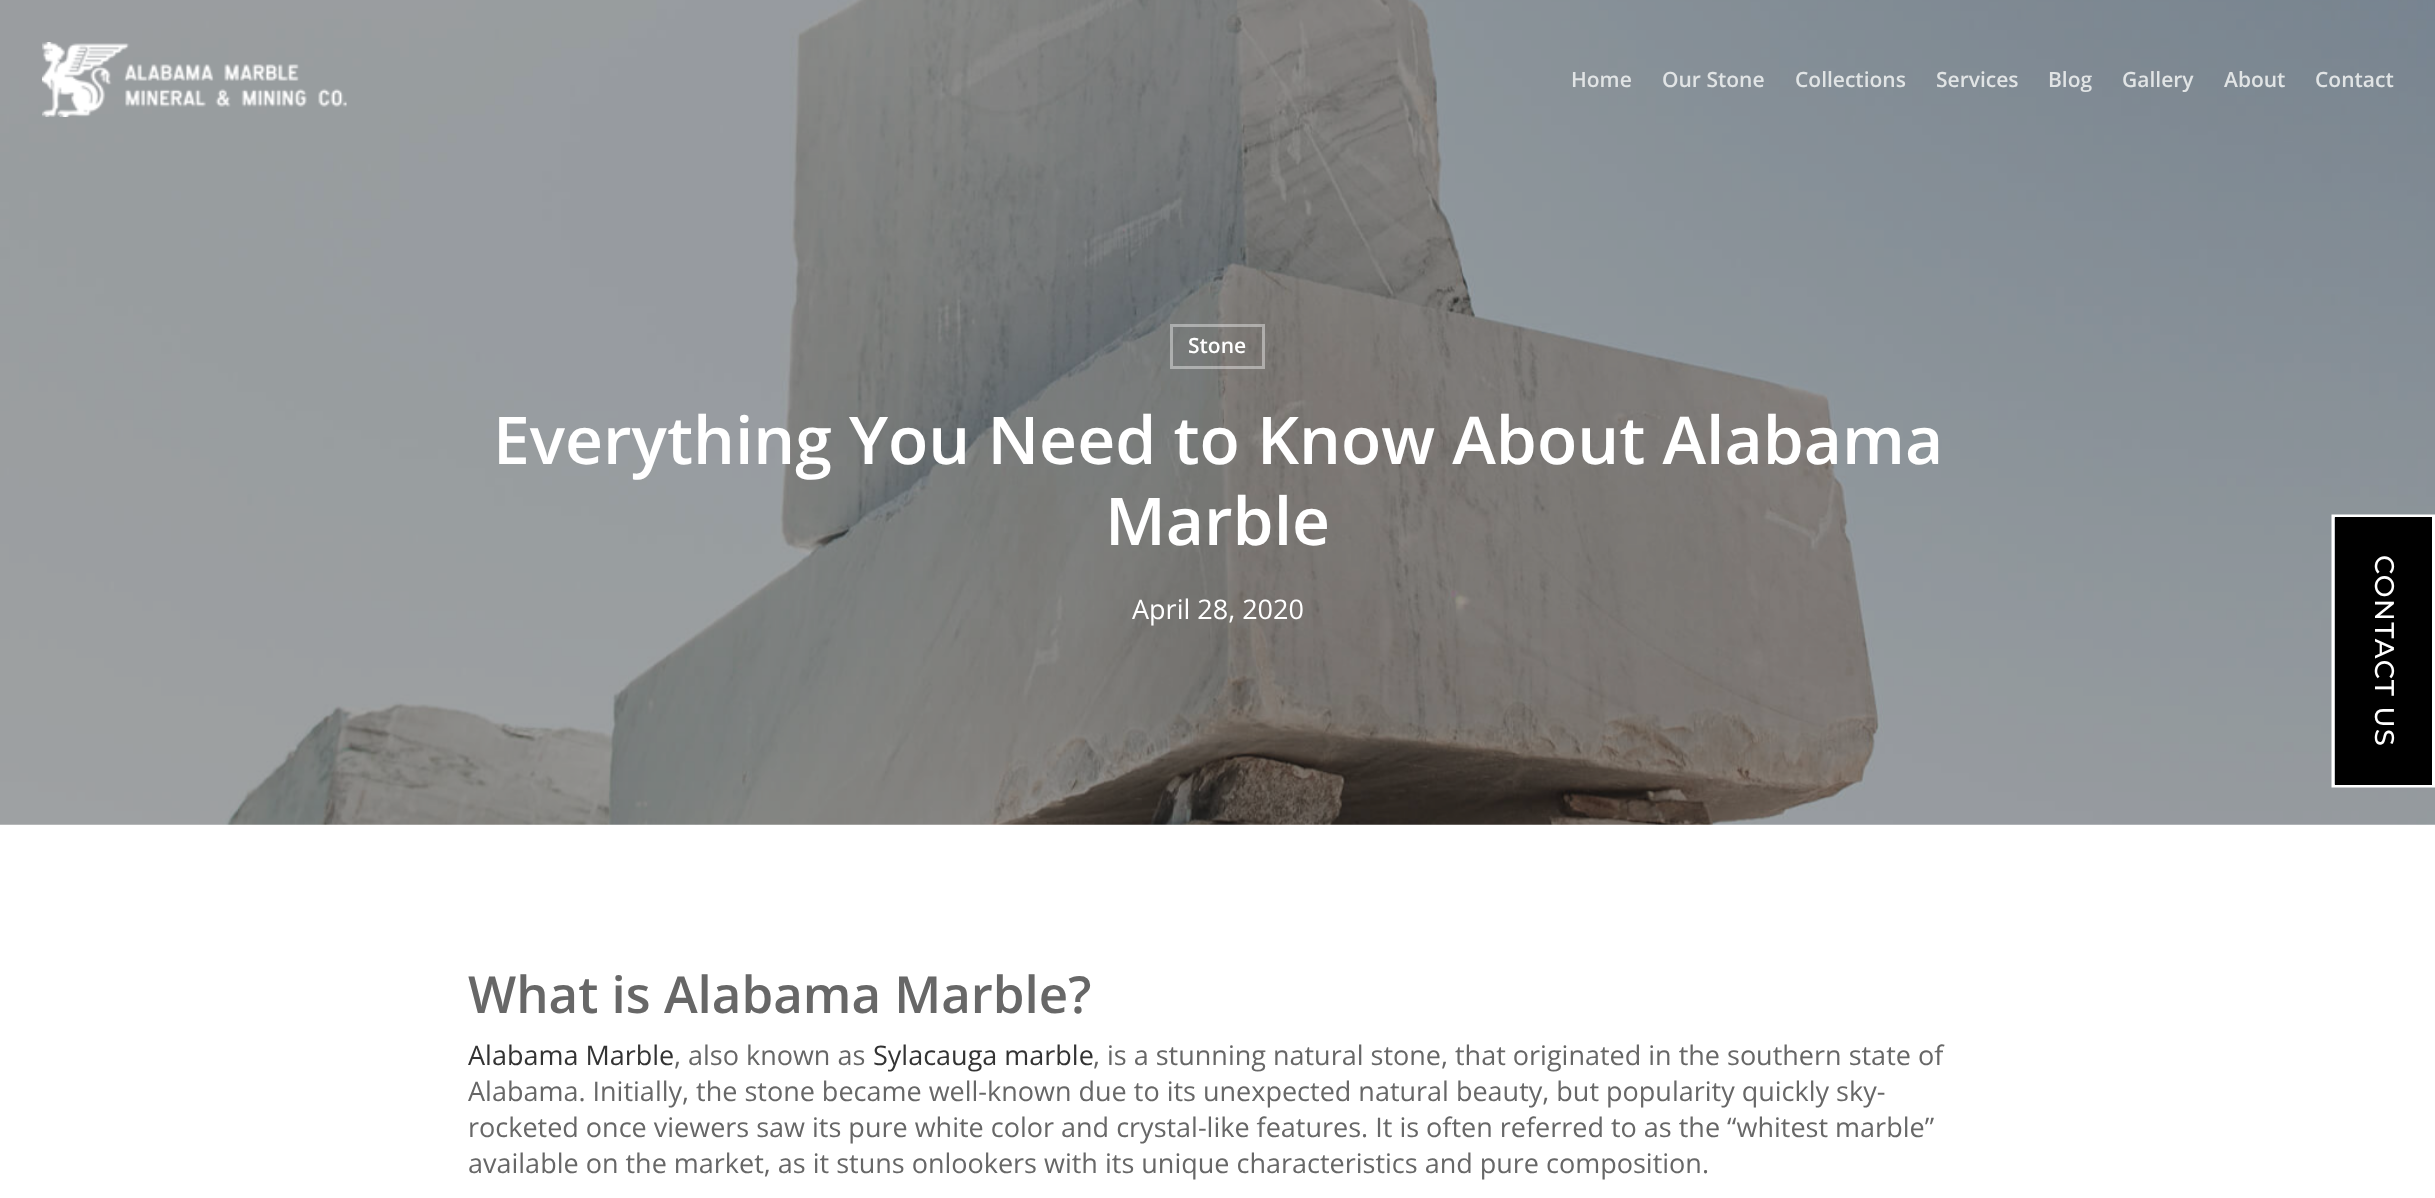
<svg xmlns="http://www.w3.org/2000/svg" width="2435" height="1198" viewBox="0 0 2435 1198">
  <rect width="100%" height="100%" fill="#fff"/>
  <image x="0" y="0" width="2435" height="825" href="img/2.png"/>
  <image x="42" y="42" width="305" height="75" href="img/1.png"/>
  <path d="M1171.5 325.5h92v42H1171.5z" fill="none" stroke="#ffffff66" stroke-width="3"/>
  <path d="M2433.5 516V786H2333V516Z" fill="none" stroke="#fff" stroke-width="3"/>
  <path d="M2335 517h97v268H2335z" fill="#000"/>
  <g font-family="Open Sans" font-size="21" font-weight="600" fill="#e1e4e5">
    <text x="1571" y="87">Home</text>
    <text x="1662" y="87">Our Stone</text>
    <text x="1795" y="87">Collections</text>
    <text x="1936" y="87">Services</text>
    <text x="2048" y="87">Blog</text>
    <text x="2122" y="87">Gallery</text>
    <text x="2224" y="87">About</text>
    <text x="2315" y="87">Contact</text>
  </g>
  <text x="1188" y="353" font-family="Open Sans" font-size="21" font-weight="600" fill="#fff">Stone</text>
  <g font-family="Open Sans" font-size="66" font-weight="600" fill="#fff">
    <text x="493" y="464">Everything You Need to Know About Alabama</text>
    <text x="1105" y="545">Marble</text>
  </g>
  <text x="1132" y="619" font-family="Open Sans" font-size="27" fill="#fff">April 28, 2020</text>
  <text x="468" y="1013" font-family="Open Sans" font-size="51" font-weight="600" fill="#676767">What is Alabama Marble?</text>
  <text x="468" y="1065" font-family="Open Sans" font-size="27" fill="#333">Alabama Marble</text>
  <text x="674" y="1065" font-family="Open Sans" font-size="27" fill="#676767">, also known as</text>
  <text x="873" y="1065" font-family="Open Sans" font-size="27" fill="#333">Sylacauga marble</text>
  <g font-family="Open Sans" font-size="27" fill="#676767">
    <text x="1093" y="1065">, is a stunning natural stone, that originated in the southern state of</text>
    <text x="468" y="1101">Alabama. Initially, the stone became well-known due to its unexpected natural beauty, but popularity quickly sky-</text>
    <text x="468" y="1137">rocketed once viewers saw its pure white color and crystal-like features. It is often referred to as the “whitest marble”</text>
    <text x="468" y="1173">available on the market, as it stuns onlookers with its unique characteristics and pure composition.</text>
  </g>
  <text x="2375" y="555" transform="rotate(90 2375 555)" font-family="Montserrat" font-size="27" font-weight="500" letter-spacing="1.5" fill="#fff">CONTACT US</text>
</svg>
